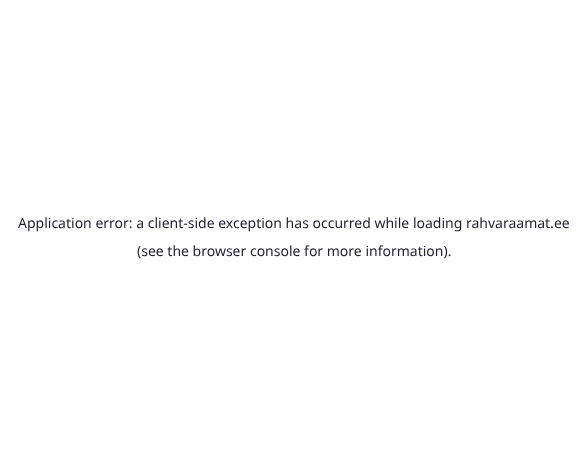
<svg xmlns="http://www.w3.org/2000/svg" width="588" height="474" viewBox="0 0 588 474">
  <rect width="100%" height="100%" fill="#fff"/>
  <g font-family="Noto Sans" font-size="14" fill="#231e33">
    <text x="18" y="228">Application error: a client-side exception has occurred while loading rahvaraamat.ee</text>
    <text x="137" y="256">(see the browser console for more information).</text>
  </g>
</svg>
